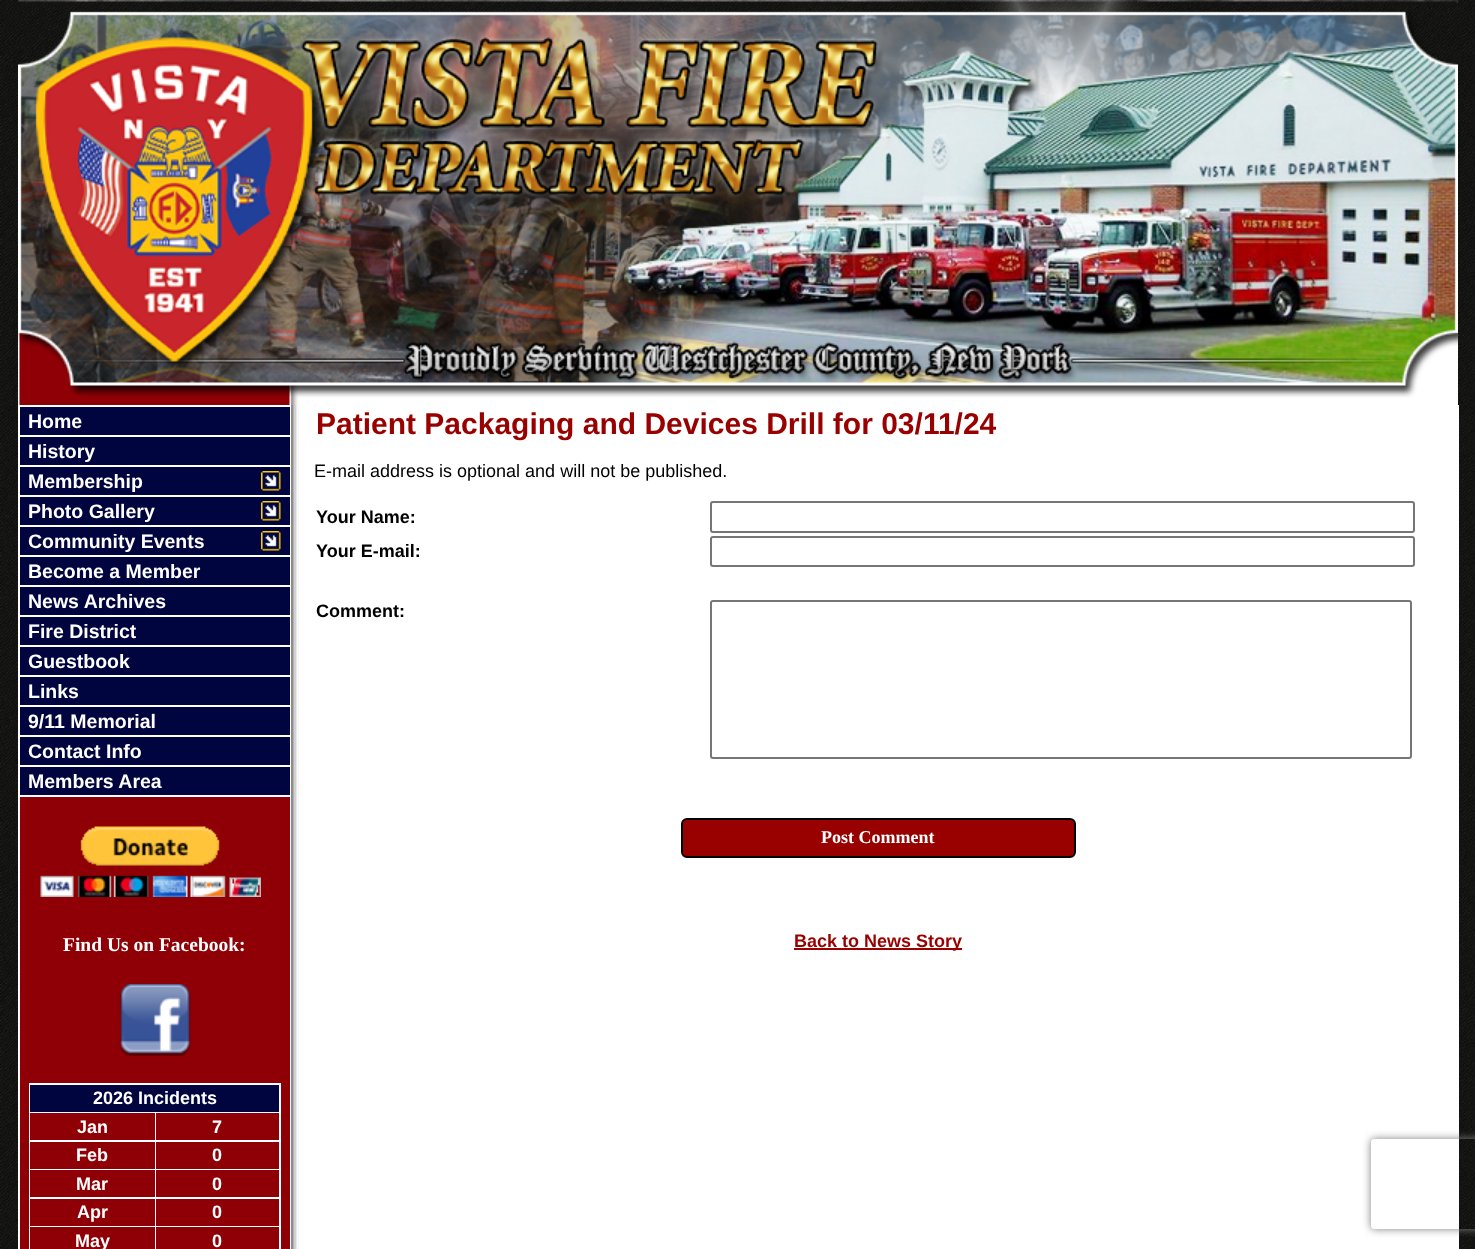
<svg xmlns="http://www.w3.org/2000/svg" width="1475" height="1249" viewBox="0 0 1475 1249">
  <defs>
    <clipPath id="clip1"><path d="M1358 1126H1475V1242H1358ZM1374 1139H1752C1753.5 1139 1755 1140.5 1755 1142V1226C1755 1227.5 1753.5 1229 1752 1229H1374C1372.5 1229 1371 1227.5 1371 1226V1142C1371 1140.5 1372.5 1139 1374 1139Z" clip-rule="evenodd"/></clipPath>
  </defs>
  <rect width="100%" height="100%" fill="#fff"/>
  <image x="0" y="0" width="1475" height="1249" href="img/1.png"/>
  <image x="18" y="0" width="1440" height="405" href="img/2.png"/>
  <path d="M18 405h2v844H18z" fill="#fff"/>
  <path d="M20 797h270v452H20z" fill="#8f0006"/>
  <path d="M20 405h270v2H20z" fill="#fff"/>
  <path d="M20 407h270v388H20z" fill="#00053f"/>
  <path d="M20 435h270v2H20z" fill="#fff"/>
  <path d="M20 465h270v2H20z" fill="#fff"/>
  <image x="261" y="471" width="20" height="20" href="img/3.png"/>
  <path d="M20 495h270v2H20z" fill="#fff"/>
  <image x="261" y="501" width="20" height="20" href="img/3.png"/>
  <path d="M20 525h270v2H20z" fill="#fff"/>
  <image x="261" y="531" width="20" height="20" href="img/3.png"/>
  <path d="M20 555h270v2H20z" fill="#fff"/>
  <path d="M20 585h270v2H20z" fill="#fff"/>
  <path d="M20 615h270v2H20z" fill="#fff"/>
  <path d="M20 645h270v2H20z" fill="#fff"/>
  <path d="M20 675h270v2H20z" fill="#fff"/>
  <path d="M20 705h270v2H20z" fill="#fff"/>
  <path d="M20 735h270v2H20z" fill="#fff"/>
  <path d="M20 765h270v2H20z" fill="#fff"/>
  <path d="M20 795h270v2H20z" fill="#fff"/>
  <image x="40" y="826" width="221" height="71" href="img/4.png"/>
  <image x="119" y="984" width="72" height="72" href="img/5.png"/>
  <path d="M29 1083h252v166H29z" fill="#fff"/>
  <path d="M30 1085h249v27H30z" fill="#00053f"/>
  <path d="M30 1113h125v27H30z" fill="#8f0006"/>
  <path d="M156 1113h123v27H156z" fill="#8f0006"/>
  <path d="M30 1142h125v27H30z" fill="#8f0006"/>
  <path d="M156 1142h123v27H156z" fill="#8f0006"/>
  <path d="M30 1170h125v27H30z" fill="#8f0006"/>
  <path d="M156 1170h123v27H156z" fill="#8f0006"/>
  <path d="M30 1199h125v27H30z" fill="#8f0006"/>
  <path d="M156 1199h123v27H156z" fill="#8f0006"/>
  <path d="M30 1227h125v22H30z" fill="#8f0006"/>
  <path d="M156 1227h123v22H156z" fill="#8f0006"/>
  <path d="M290 405h1v844H290z" fill="#fff"/>
  <path d="M291 405h2v844H291z" fill="#8c8c8c"/>
  <path d="M293 405h1v844H293z" fill="#b3b3b3"/>
  <path d="M294 405h2v844H294z" fill="#d1d1d1"/>
  <path d="M296 405h1v844H296z" fill="#e8e8e8"/>
  <path d="M297 405h2v844H297z" fill="#f8f8f8"/>
  <path d="M299 405h1160v844H299z" fill="#fff"/>
  <rect x="711" y="502" width="703" height="30" rx="2" fill="none" stroke="#767676" stroke-width="2"/>
  <rect x="711" y="537" width="703" height="29" rx="2" fill="none" stroke="#767676" stroke-width="2"/>
  <rect x="711" y="601" width="700" height="157" rx="2" fill="none" stroke="#767676" stroke-width="2"/>
  <rect x="682" y="819" width="393" height="38" rx="5" fill="#900" stroke="#000" stroke-width="2"/>
  <path d="M794 948h168v2H794z" fill="#900"/>
  <g clip-path="url(#clip1)">
    <rect x="1371" y="1139" width="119" height="90" rx="3" fill="#808080" filter="blur(4px)"/>
  </g>
  <g font-family="Liberation Sans" font-size="19.5" font-weight="bold" fill="#fff">
    <text x="28" y="428">Home</text>
    <text x="28" y="458">History</text>
    <text x="28" y="488">Membership</text>
    <text x="28" y="518">Photo Gallery</text>
    <text x="28" y="548">Community Events</text>
    <text x="28" y="578">Become a Member</text>
    <text x="28" y="608">News Archives</text>
    <text x="28" y="638">Fire District</text>
    <text x="28" y="668">Guestbook</text>
    <text x="28" y="698">Links</text>
    <text x="28" y="728">9/11 Memorial</text>
    <text x="28" y="758">Contact Info</text>
    <text x="28" y="788">Members Area</text>
  </g>
  <text x="63" y="951" font-family="Liberation Serif" font-size="19.5" font-weight="bold" fill="#fff">Find Us on Facebook:</text>
  <g font-family="Liberation Sans" font-size="18" font-weight="bold" fill="#fff">
    <text x="93" y="1104">2026 Incidents</text>
    <text x="77" y="1133">Jan</text>
    <text x="212" y="1133">7</text>
    <text x="76" y="1161">Feb</text>
    <text x="212" y="1161">0</text>
    <text x="76" y="1190">Mar</text>
    <text x="212" y="1190">0</text>
    <text x="77" y="1218">Apr</text>
    <text x="212" y="1218">0</text>
    <text x="75" y="1247">May</text>
    <text x="212" y="1247">0</text>
  </g>
  <text x="316" y="434" font-family="Liberation Sans" font-size="30" font-weight="bold" fill="#900">Patient Packaging and Devices Drill for 03/11/24</text>
  <text x="314" y="477" font-family="Liberation Sans" font-size="18" fill="#000">E-mail address is optional and will not be published.</text>
  <g font-family="Liberation Sans" font-size="18" font-weight="bold" fill="#000">
    <text x="316" y="523">Your Name:</text>
    <text x="316" y="557">Your E-mail:</text>
    <text x="316" y="617">Comment:</text>
  </g>
  <text x="821" y="843" font-family="Liberation Serif" font-size="18" font-weight="bold" fill="#fff">Post Comment</text>
  <text x="794" y="947" font-family="Liberation Sans" font-size="18" font-weight="bold" fill="#900">Back to News Story</text>
</svg>
